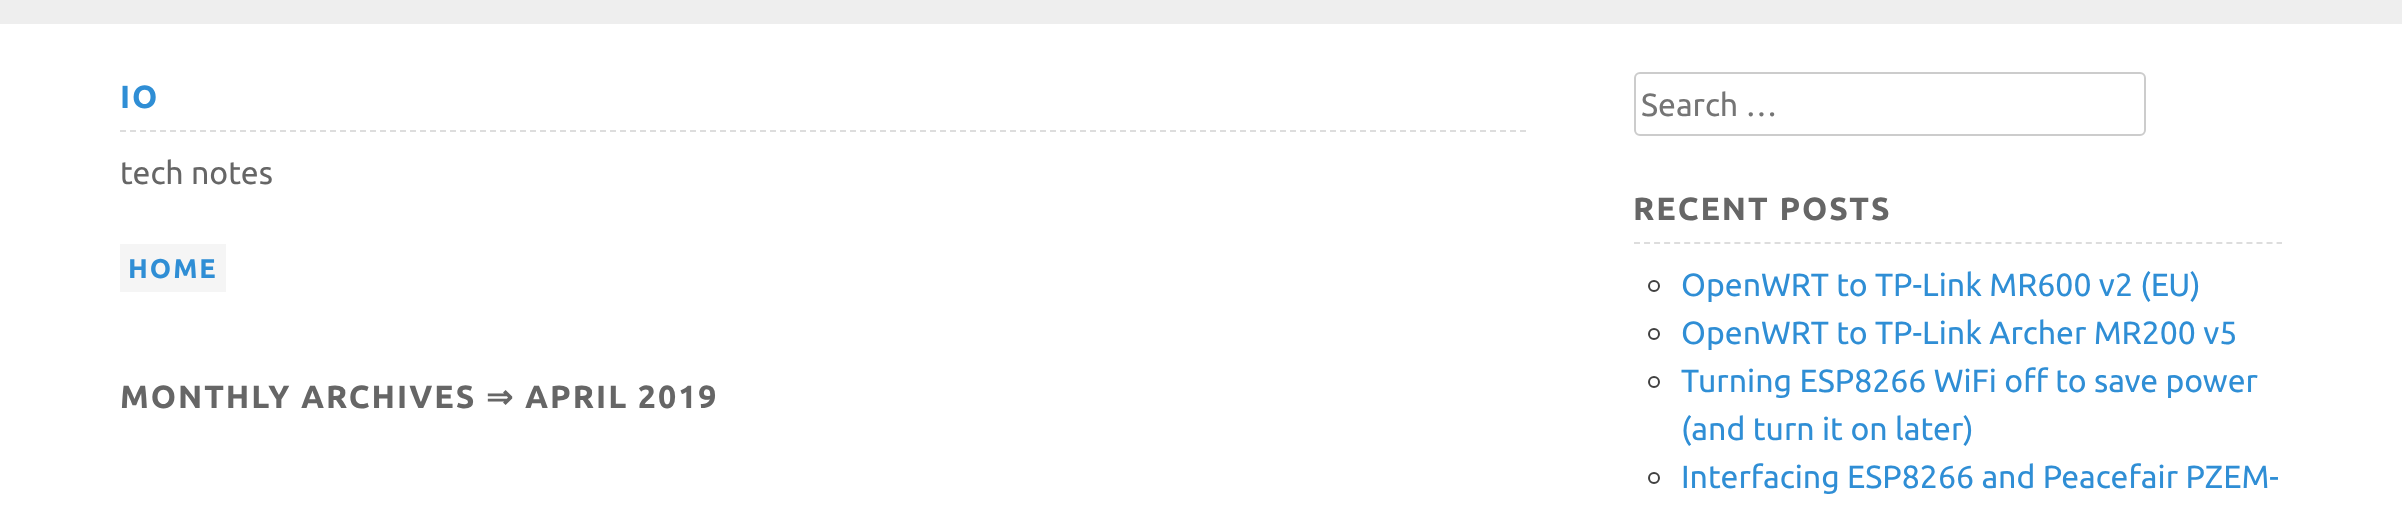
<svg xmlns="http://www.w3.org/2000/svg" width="2402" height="523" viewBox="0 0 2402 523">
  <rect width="100%" height="100%" fill="#fff"/>
  <path d="M0 0h2402v24H0z" fill="#eee"/>
  <path d="M120 131H1526" fill="none" stroke="#ddd" stroke-width="2" stroke-dasharray="6 4"/>
  <path d="M120 244h106v48H120z" fill="#f5f5f5"/>
  <rect x="1635" y="73" width="510" height="62" rx="5" fill="none" stroke="#ccc" stroke-width="2"/>
  <path d="M1634 243H2282" fill="none" stroke="#ddd" stroke-width="2" stroke-dasharray="6 4.04"/>
  <circle cx="1654" cy="286" r="5" fill="none" stroke="#404040" stroke-width="2"/>
  <circle cx="1654" cy="334" r="5" fill="none" stroke="#404040" stroke-width="2"/>
  <circle cx="1654" cy="382" r="5" fill="none" stroke="#404040" stroke-width="2"/>
  <circle cx="1654" cy="478" r="5" fill="none" stroke="#404040" stroke-width="2"/>
  <text x="120" y="108" font-family="Ubuntu" font-size="32" font-weight="bold" letter-spacing="2" fill="#2f8ed5">IO</text>
  <text x="120" y="184" font-family="Ubuntu" font-size="32" fill="#666">tech notes</text>
  <text x="128" y="278" font-family="Ubuntu" font-size="27" font-weight="bold" letter-spacing="2" fill="#2f8ed5">HOME</text>
  <text x="120" y="408" font-family="Ubuntu" font-size="32" font-weight="bold" letter-spacing="2" fill="#666">MONTHLY ARCHIVES</text>
  <text x="486" y="408" font-family="DejaVu Sans" font-size="32" font-weight="bold" letter-spacing="2" fill="#666">⇒</text>
  <text x="525" y="408" font-family="Ubuntu" font-size="32" font-weight="bold" letter-spacing="2" fill="#666">APRIL 2019</text>
  <text x="1641" y="116" font-family="Ubuntu" font-size="32" fill="#757575">Search …</text>
  <text x="1633" y="220" font-family="Ubuntu" font-size="32" font-weight="bold" letter-spacing="2" fill="#666">RECENT POSTS</text>
  <g font-family="Ubuntu" font-size="32" fill="#2f8ed5">
    <text x="1681" y="296">OpenWRT to TP-Link MR600 v2 (EU)</text>
    <text x="1681" y="344">OpenWRT to TP-Link Archer MR200 v5</text>
    <text x="1681" y="392">Turning ESP8266 WiFi off to save power</text>
    <text x="1681" y="440">(and turn it on later)</text>
    <text x="1681" y="488">Interfacing ESP8266 and Peacefair PZEM-</text>
  </g>
</svg>
